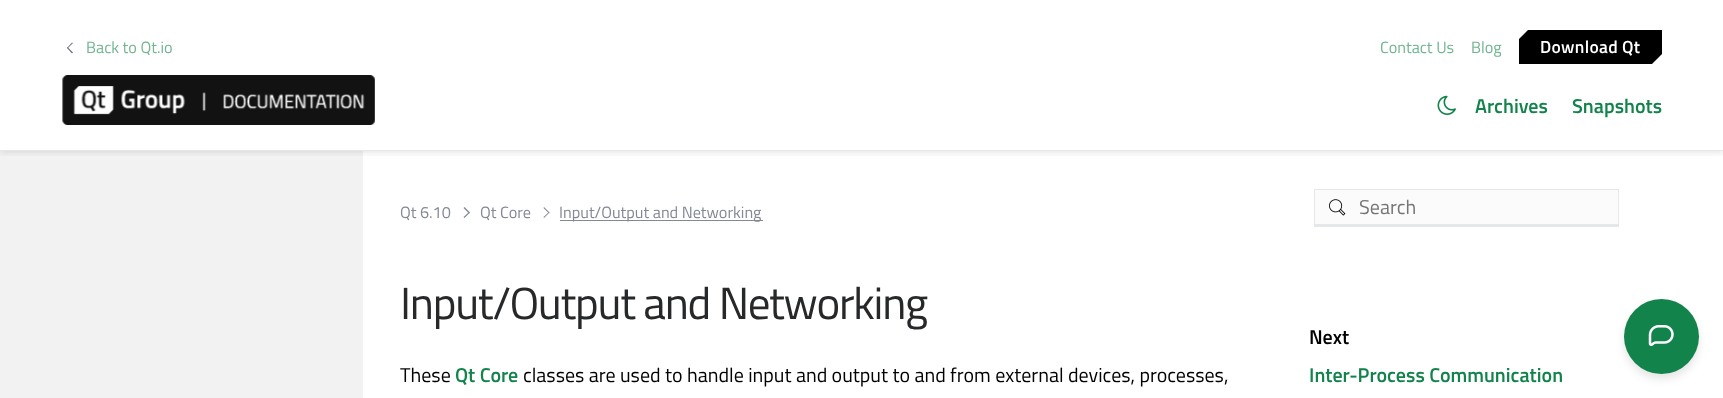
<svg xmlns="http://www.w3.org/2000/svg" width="1723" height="398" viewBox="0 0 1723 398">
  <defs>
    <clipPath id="clip1"><path d="M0 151h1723v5H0z"/></clipPath>
  </defs>
  <rect width="100%" height="100%" fill="#fff"/>
  <path d="M0 151h363v247H0z" fill="#f2f2f2"/>
  <g clip-path="url(#clip1)">
    <path d="M0 1h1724v152H0z" fill="#09102b1a" filter="blur(3px)"/>
  </g>
  <path d="M0 150h1723v1H0z" fill="#e8e8e8"/>
  <path d="M73 52.5L72 53.5L67 48L67.5 47Z" fill="#6b7080"/>
  <path d="M73 43L67.5 48.5L67 48L72 42.5Z" fill="#6b7080"/>
  <path d="M1519 39L1528 30H1662V54L1652 64H1519Z" fill="#000"/>
  <image x="62" y="75" width="313" height="50" href="img/1.png"/>
  <image x="1437" y="95" width="19" height="20" href="img/2.png"/>
  <path d="M463.5 208L464.5 207L470 212.5L469 213.5Z" fill="#848895"/>
  <path d="M463.5 217L469 212L470 212.5L464.5 218Z" fill="#848895"/>
  <path d="M543.5 208L544 207L549.5 212.5L549 213.5Z" fill="#848895"/>
  <path d="M543.5 217L549 212L549.5 212.5L544 218Z" fill="#848895"/>
  <path d="M560 220h203v1H560z" fill="#848895"/>
  <path d="M1315 190h303v34H1315z" fill="#fbfbfb"/>
  <image x="1329" y="199" width="17" height="17" href="img/3.png"/>
  <path d="M1314 189h305v1H1314z" fill="#e6e7e9"/>
  <path d="M1618 189h1v37H1618z" fill="#e6e7e9"/>
  <path d="M1314 224h305v3H1314z" fill="#e6e7e9"/>
  <path d="M1314 189h1v37H1314z" fill="#e6e7e9"/>
  <rect x="1624" y="304" width="75" height="75" rx="37.5" fill="#0000001a" filter="blur(4px)"/>
  <circle cx="1661.5" cy="336.5" r="37.5" fill="#12834b"/>
  <image x="1648" y="325" width="26" height="21" href="img/4.png"/>
  <g font-family="Titillium Web" font-size="16.25" fill="#71b593">
    <text x="86" y="53">Back to Qt.io</text>
    <text x="1380" y="53">Contact Us</text>
    <text x="1471" y="53">Blog</text>
  </g>
  <text x="1540" y="53" font-family="Titillium Web" font-size="17.5" font-weight="600" letter-spacing="0.3" fill="#fff">Download Qt</text>
  <g font-family="Titillium Web" font-size="20" font-weight="600" fill="#12834b">
    <text x="1475" y="113">Archives</text>
    <text x="1572" y="113">Snapshots</text>
  </g>
  <g font-family="Titillium Web" font-size="16.25" fill="#848895">
    <text x="400" y="218">Qt 6.10</text>
    <text x="480" y="218">Qt Core</text>
    <text x="559" y="218">Input/Output and Networking</text>
  </g>
  <text x="1359" y="214" font-family="Titillium Web" font-size="20" fill="#757575">Search</text>
  <text x="400" y="319" font-family="Titillium Web" font-size="45" letter-spacing="-1.25" fill="#26282a">Input/Output and Networking</text>
  <text x="400" y="382" font-family="Titillium Web" font-size="20" fill="#000">These</text>
  <text x="455" y="382" font-family="Titillium Web" font-size="20" font-weight="600" fill="#12834b">Qt Core</text>
  <text x="523" y="382" font-family="Titillium Web" font-size="20" fill="#000">classes are used to handle input and output to and from external devices, processes,</text>
  <text x="1309" y="344" font-family="Titillium Web" font-size="20" font-weight="600" fill="#000">Next</text>
  <text x="1309" y="382" font-family="Titillium Web" font-size="20" font-weight="600" fill="#12834b">Inter-Process Communication</text>
</svg>
